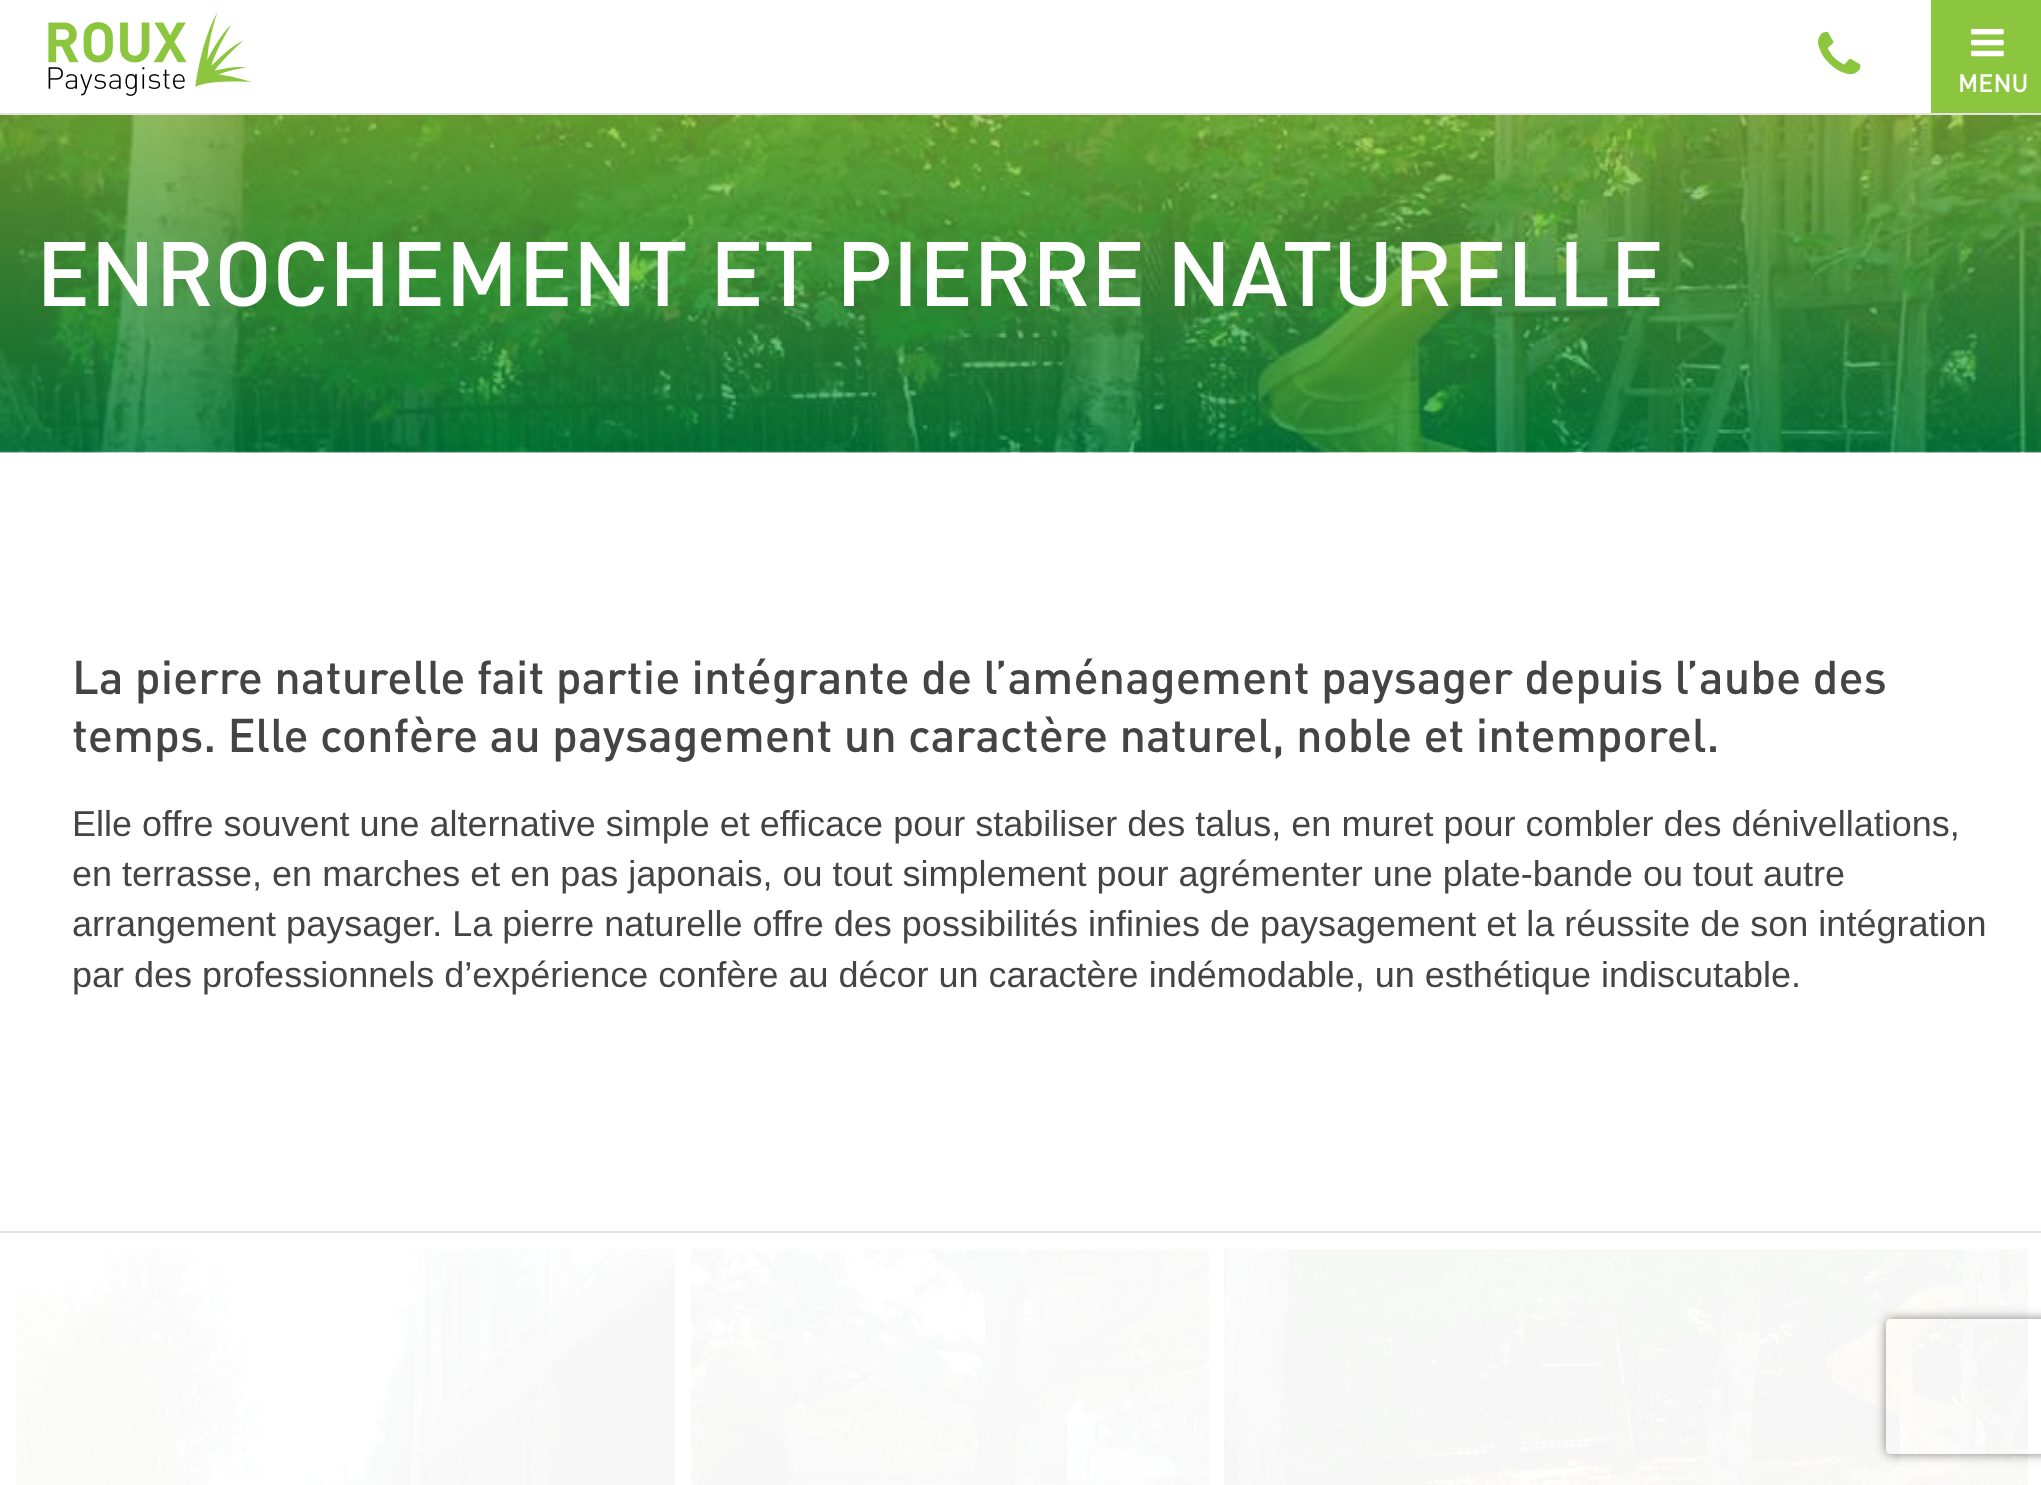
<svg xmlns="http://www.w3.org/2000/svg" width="2041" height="1485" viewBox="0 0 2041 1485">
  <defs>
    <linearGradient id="g1" gradientUnits="userSpaceOnUse" x1="1022" y1="115" x2="1022" y2="452"><stop offset="0" stop-color="#8bc53f" stop-opacity="0.7"/><stop offset="0.01" stop-color="#8ac53f" stop-opacity="0.7"/><stop offset="1" stop-color="#009345" stop-opacity="0.7"/></linearGradient>
    <clipPath id="clip1"><path d="M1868 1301H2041V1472H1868ZM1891 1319H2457C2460 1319 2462 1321 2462 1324V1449C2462 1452 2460 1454 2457 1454H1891C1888 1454 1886 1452 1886 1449V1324C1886 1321 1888 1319 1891 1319Z" clip-rule="evenodd"/></clipPath>
  </defs>
  <rect width="100%" height="100%" fill="#fff"/>
  <image x="48" y="12" width="203" height="84" href="img/1.png"/>
  <image x="1818" y="31" width="43" height="44" href="img/2.png"/>
  <path d="M1931 0h110v113H1931z" fill="#8cc63f"/>
  <image x="1971" y="28" width="33" height="29" href="img/3.png"/>
  <path d="M0 113h2041v2H0z" fill="#e3e3e3"/>
  <path d="M0 1231h2041v2H0z" fill="#e3e3e3"/>
  <image x="0" y="115" width="2041" height="338" href="img/4.png"/>
  <path d="M0 115h2041v337H0z" fill="url(#g1)"/>
  <image x="16" y="1249" width="659" height="236" href="img/5.png"/>
  <image x="691" y="1249" width="518" height="236" href="img/6.png"/>
  <g clip-path="url(#clip1)">
    <rect x="1886" y="1319" width="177" height="135" rx="5" fill="#808080" filter="blur(5.5px)"/>
  </g>
  <image x="1224" y="1249" width="804" height="236" href="img/7.png"/>
  <text x="1958" y="92" font-family="DIN" font-size="25" font-weight="500" fill="#fff">MENU</text>
  <text x="36" y="306" font-family="DIN" font-size="90" font-weight="500" fill="#fff">ENROCHEMENT ET PIERRE NATURELLE</text>
  <g font-family="DIN" font-size="46.8" font-weight="500" fill="#444">
    <text x="72" y="694">La pierre naturelle fait partie intégrante de l’aménagement paysager depuis l’aube des</text>
    <text x="72" y="752">temps. Elle confère au paysagement un caractère naturel, noble et intemporel.</text>
  </g>
  <g font-family="Liberation Sans" font-size="36" fill="#444">
    <text x="72" y="836">Elle offre souvent une alternative simple et efficace pour stabiliser des talus, en muret pour combler des dénivellations,</text>
    <text x="72" y="886">en terrasse, en marches et en pas japonais, ou tout simplement pour agrémenter une plate-bande ou tout autre</text>
    <text x="72" y="936">arrangement paysager. La pierre naturelle offre des possibilités infinies de paysagement et la réussite de son intégration</text>
    <text x="72" y="987">par des professionnels d’expérience confère au décor un caractère indémodable, un esthétique indiscutable.</text>
  </g>
</svg>
